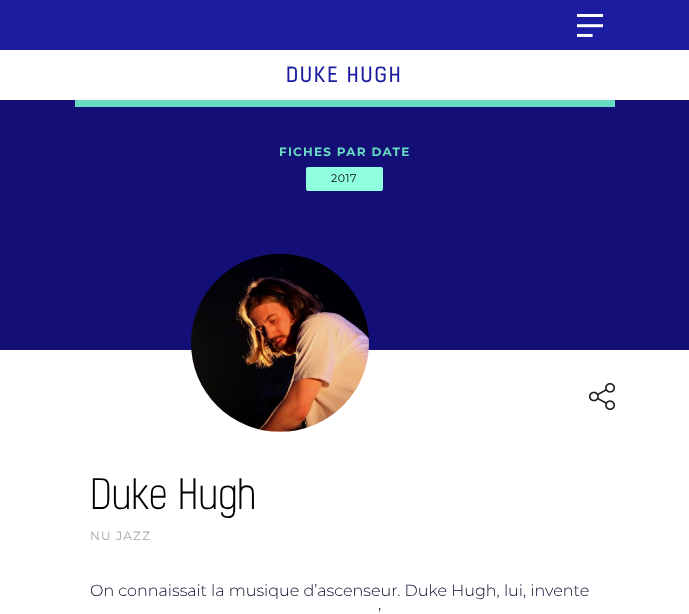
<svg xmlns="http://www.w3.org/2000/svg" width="689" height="614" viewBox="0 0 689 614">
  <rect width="100%" height="100%" fill="#fff"/>
  <path d="M0 0h689v50H0z" fill="#1c1ca0"/>
  <image x="577" y="14" width="26" height="23" href="img/1.png"/>
  <path d="M0 100h689v250H0z" fill="#140f76"/>
  <path d="M75 100h540v7H75z" fill="#67dcc2"/>
  <rect x="306" y="167" width="77" height="24" rx="2" fill="#90ffde"/>
  <image x="191" y="253" width="178" height="179" href="img/2.png"/>
  <image x="589" y="383" width="26" height="27" href="img/3.png"/>
  <text x="286" y="82" font-family="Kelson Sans" font-size="20" letter-spacing="2" fill="#1c1ca0">DUKE HUGH</text>
  <text x="279" y="156" font-family="Montserrat" font-size="12" font-weight="bold" letter-spacing="1.25" fill="#67dcc2">FICHES PAR DATE</text>
  <text x="331" y="182" font-family="Montserrat" font-size="11" letter-spacing="0.5" fill="#000">2017</text>
  <text x="90" y="509" font-family="Kelson Sans" font-size="40" font-weight="300" fill="#000">Duke Hugh</text>
  <text x="90" y="540" font-family="Montserrat" font-size="12" letter-spacing="1.25" fill="#a6a6a6">NU JAZZ</text>
  <g font-family="Montserrat" font-size="16" font-weight="300" fill="#090a28">
    <text x="90" y="596">On connaissait la musique d’ascenseur. Duke Hugh, lui, invente</text>
    <text x="378" y="620">’</text>
  </g>
</svg>
